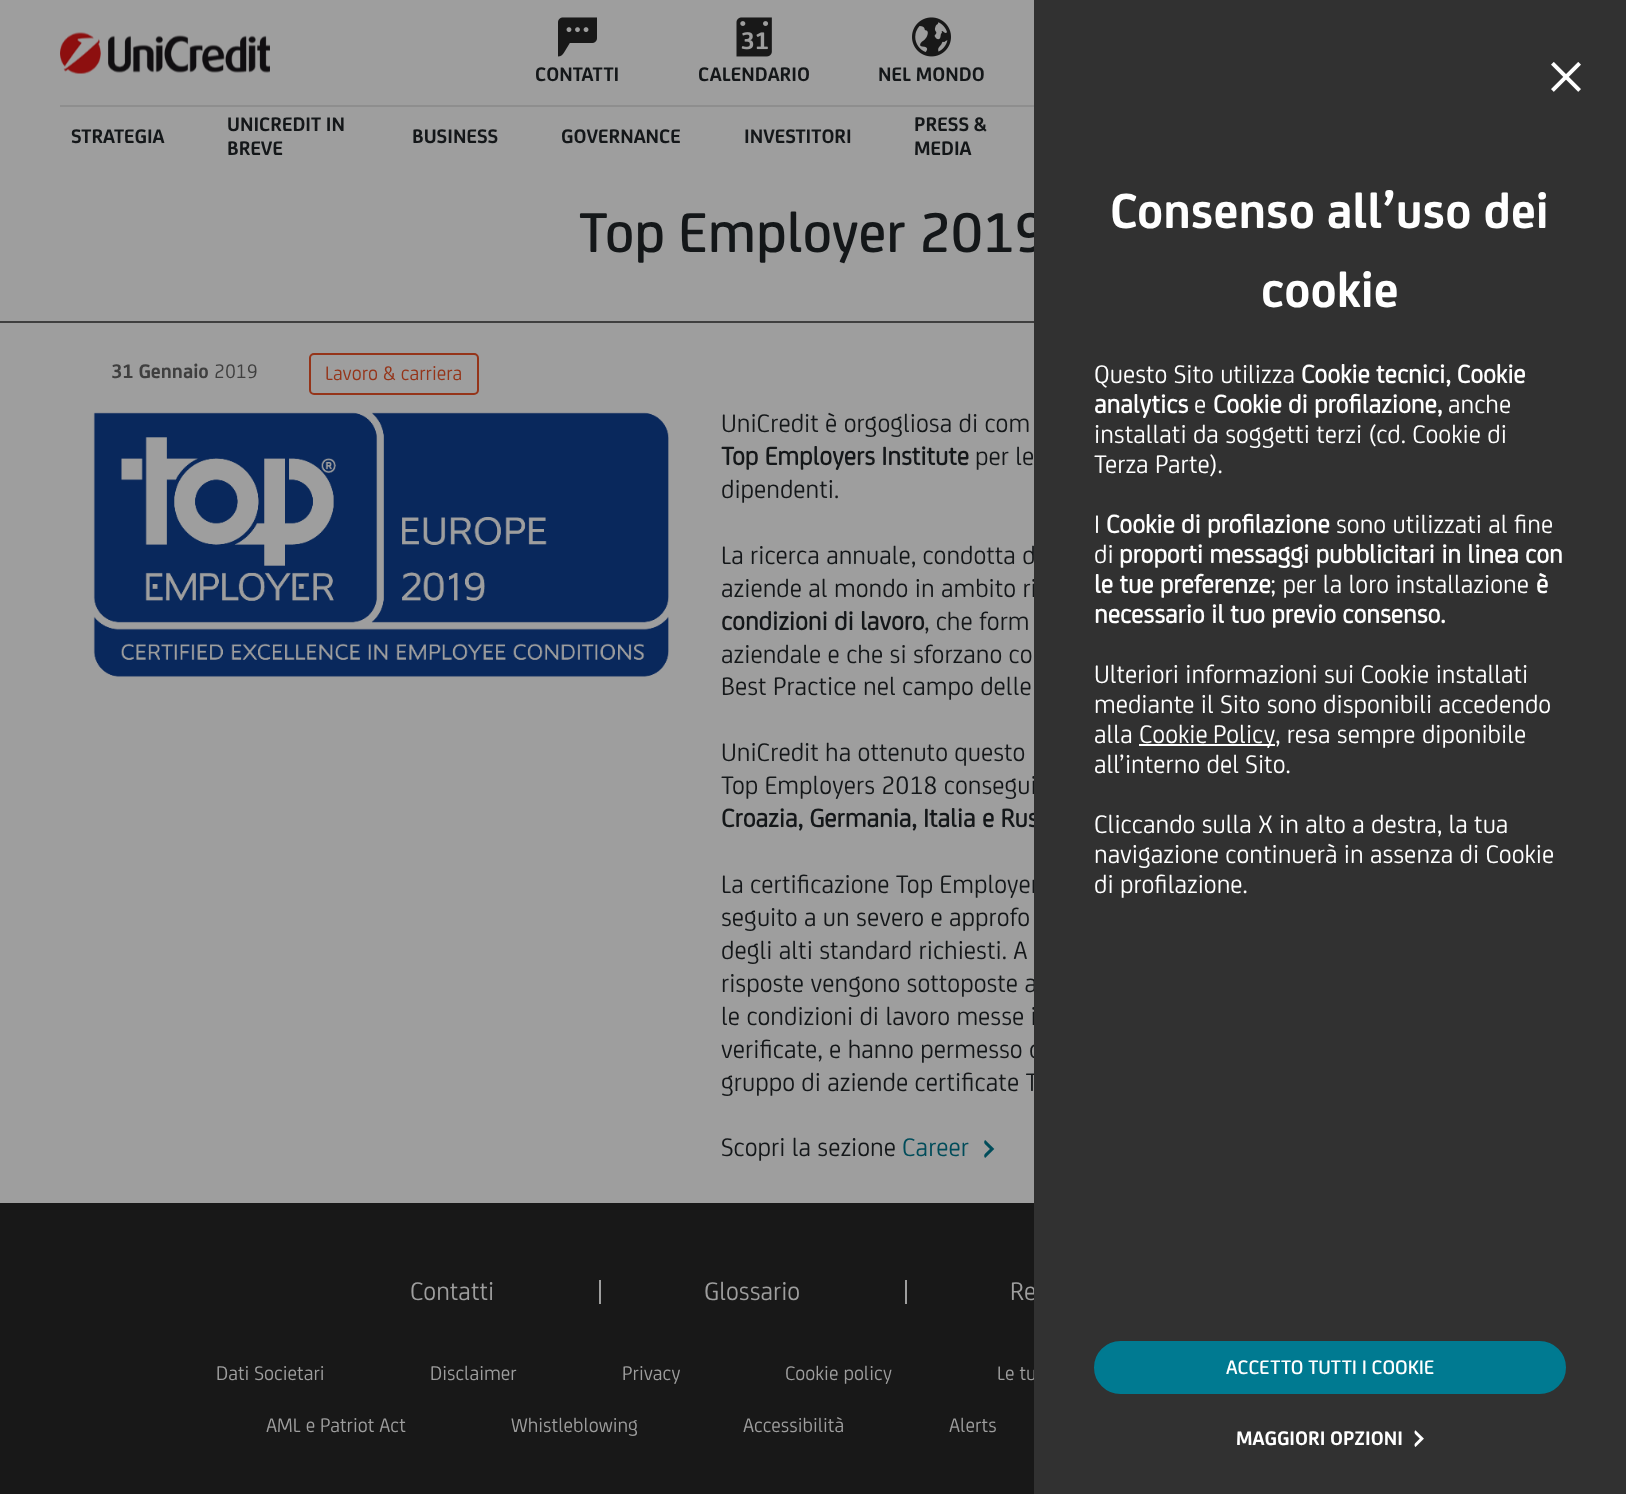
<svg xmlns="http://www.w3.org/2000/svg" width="1626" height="1494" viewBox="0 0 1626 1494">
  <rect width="100%" height="100%" fill="#9e9e9e"/>
  <image x="60" y="32" width="210" height="42" href="img/1.png"/>
  <image x="558" y="17" width="39" height="40" href="img/2.png"/>
  <image x="736" y="17" width="36" height="40" href="img/3.png"/>
  <image x="912" y="17" width="39" height="40" href="img/4.png"/>
  <path d="M60 105h974v2H60z" fill="#8e8e8e"/>
  <path d="M0 321h1034v2H0z" fill="#3f3f3f"/>
  <rect x="310" y="354" width="168" height="40" rx="4" fill="none" stroke="#953419" stroke-width="2"/>
  <image x="93" y="412" width="576" height="265" href="img/5.png"/>
  <image x="984" y="1140" width="11" height="18" href="img/6.png"/>
  <path d="M0 1203h1034v291H0z" fill="#181818"/>
  <path d="M599 1280h2v24H599z" fill="#9e9e9e"/>
  <path d="M905 1280h2v24H905z" fill="#9e9e9e"/>
  <g font-family="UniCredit" font-size="21" font-weight="bold" fill="#141719">
    <text x="535" y="81">CONTATTI</text>
    <text x="698" y="81">CALENDARIO</text>
    <text x="878" y="81">NEL MONDO</text>
    <text x="71" y="143">STRATEGIA</text>
    <text x="227" y="131">UNICREDIT IN</text>
    <text x="227" y="155">BREVE</text>
    <text x="412" y="143">BUSINESS</text>
    <text x="561" y="143">GOVERNANCE</text>
    <text x="744" y="143">INVESTITORI</text>
    <text x="914" y="131">PRESS &amp;</text>
    <text x="914" y="155">MEDIA</text>
  </g>
  <text x="579" y="252" font-family="UniCredit" font-size="60" font-weight="500" fill="#141719">Top Employer 2019</text>
  <text x="111" y="378" font-family="UniCredit" font-size="21" font-weight="bold" fill="#3f3f3f">31 Gennaio</text>
  <text x="214" y="378" font-family="UniCredit" font-size="21" fill="#3f3f3f">2019</text>
  <text x="325" y="380" font-family="UniCredit" font-size="21" fill="#953419">Lavoro &amp; carriera</text>
  <text x="721" y="432" font-family="UniCredit" font-size="27" fill="#141719">UniCredit è orgogliosa di com</text>
  <text x="721" y="465" font-family="'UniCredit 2'" font-size="27" font-weight="bold" fill="#141719">Top Employers Institute</text>
  <g font-family="UniCredit" font-size="27" fill="#141719">
    <text x="975" y="465">per le</text>
    <text x="721" y="498">dipendenti.</text>
    <text x="721" y="564">La ricerca annuale, condotta d</text>
    <text x="721" y="597">aziende al mondo in ambito ri</text>
  </g>
  <text x="721" y="630" font-family="'UniCredit 2'" font-size="27" font-weight="bold" fill="#141719">condizioni di lavoro</text>
  <g font-family="UniCredit" font-size="27" fill="#141719">
    <text x="924" y="630">, che form</text>
    <text x="721" y="663">aziendale e che si sforzano co</text>
    <text x="721" y="695">Best Practice nel campo delle</text>
    <text x="721" y="761">UniCredit ha ottenuto questo</text>
    <text x="721" y="794">Top Employers 2018 consegui</text>
  </g>
  <text x="721" y="827" font-family="'UniCredit 2'" font-size="27" font-weight="bold" fill="#141719">Croazia, Germania, Italia e Rus</text>
  <g font-family="UniCredit" font-size="27" fill="#141719">
    <text x="721" y="893">La certificazione Top Employer</text>
    <text x="721" y="926">seguito a un severo e approfo</text>
    <text x="721" y="959">degli alti standard richiesti. A</text>
    <text x="721" y="992">risposte vengono sottoposte a</text>
    <text x="721" y="1025">le condizioni di lavoro messe i</text>
    <text x="721" y="1058">verificate, e hanno permesso c</text>
    <text x="721" y="1091">gruppo di aziende certificate T</text>
    <text x="721" y="1156">Scopri la sezione</text>
  </g>
  <text x="902" y="1156" font-family="UniCredit" font-size="27" fill="#004c5a">Career</text>
  <g font-family="UniCredit" font-size="27" fill="#9e9e9e">
    <text x="410" y="1300">Contatti</text>
    <text x="704" y="1300">Glossario</text>
    <text x="1010" y="1300">Re</text>
  </g>
  <g font-family="UniCredit" font-size="21" fill="#9e9e9e">
    <text x="216" y="1380">Dati Societari</text>
    <text x="430" y="1380">Disclaimer</text>
    <text x="622" y="1380">Privacy</text>
    <text x="785" y="1380">Cookie policy</text>
    <text x="997" y="1380">Le tu</text>
  </g>
  <path d="M1034 0h592v1494H1034z" fill="#313131"/>
  <image x="1414" y="1430" width="10" height="17" href="img/8.png"/>
  <text x="1236" y="1445" font-family="UniCredit" font-size="21" font-weight="bold" fill="#fff">MAGGIORI OPZIONI</text>
  <image x="1551" y="62" width="30" height="30" href="img/7.png"/>
  <rect x="1095" y="1342" width="470" height="51" rx="25.5" fill="#007a91" stroke="#007a91" stroke-width="2"/>
  <text x="1226" y="1374" font-family="UniCredit" font-size="21" font-weight="500" fill="#fff">ACCETTO TUTTI I COOKIE</text>
  <g font-family="UniCredit" font-size="27" fill="#fff">
    <text x="1094" y="893">di profilazione.</text>
    <text x="1094" y="863">navigazione continuerà in assenza di Cookie</text>
    <text x="1094" y="833">Cliccando sulla X in alto a destra, la tua</text>
    <text x="1094" y="773">all’interno del Sito.</text>
    <text x="1275" y="743">, resa sempre diponibile</text>
  </g>
  <path d="M1139 744h136v2H1139z" fill="#fff"/>
  <g font-family="UniCredit" font-size="27" fill="#fff">
    <text x="1139" y="743" word-spacing="-1">Cookie Policy</text>
    <text x="1094" y="743">alla</text>
    <text x="1094" y="713">mediante il Sito sono disponibili accedendo</text>
    <text x="1094" y="683">Ulteriori informazioni sui Cookie installati</text>
  </g>
  <g font-family="'UniCredit 2'" font-size="27" font-weight="bold" fill="#fff">
    <text x="1094" y="623">necessario il tuo previo consenso.</text>
    <text x="1536" y="593">è</text>
  </g>
  <text x="1270" y="593" font-family="UniCredit" font-size="27" fill="#fff">; per la loro installazione</text>
  <g font-family="'UniCredit 2'" font-size="27" font-weight="bold" fill="#fff">
    <text x="1094" y="593">le tue preferenze</text>
    <text x="1119" y="563">proporti messaggi pubblicitari in linea con</text>
  </g>
  <g font-family="UniCredit" font-size="27" fill="#fff">
    <text x="1094" y="563">di</text>
    <text x="1336" y="533">sono utilizzati al fine</text>
  </g>
  <text x="1106" y="533" font-family="'UniCredit 2'" font-size="27" font-weight="bold" fill="#fff">Cookie di profilazione</text>
  <g font-family="UniCredit" font-size="27" fill="#fff">
    <text x="1094" y="533">I</text>
    <text x="1094" y="473">Terza Parte).</text>
    <text x="1094" y="443">installati da soggetti terzi (cd. Cookie di</text>
    <text x="1448" y="413">anche</text>
  </g>
  <text x="1213" y="413" font-family="'UniCredit 2'" font-size="27" font-weight="bold" fill="#fff">Cookie di profilazione,</text>
  <text x="1194" y="413" font-family="UniCredit" font-size="27" fill="#fff">e</text>
  <g font-family="'UniCredit 2'" font-size="27" font-weight="bold" fill="#fff">
    <text x="1094" y="413">analytics</text>
    <text x="1301" y="383">Cookie tecnici, Cookie</text>
  </g>
  <text x="1094" y="383" font-family="UniCredit" font-size="27" fill="#fff">Questo Sito utilizza</text>
  <g font-family="UniCredit" font-size="52.5" font-weight="bold" fill="#fff">
    <text x="1261" y="307">cookie</text>
    <text x="1110" y="228">Consenso all’uso dei</text>
  </g>
  <g font-family="UniCredit" font-size="21" fill="#9e9e9e">
    <text x="266" y="1432">AML e Patriot Act</text>
    <text x="511" y="1432">Whistleblowing</text>
    <text x="743" y="1432">Accessibilità</text>
    <text x="949" y="1432">Alerts</text>
  </g>
</svg>
